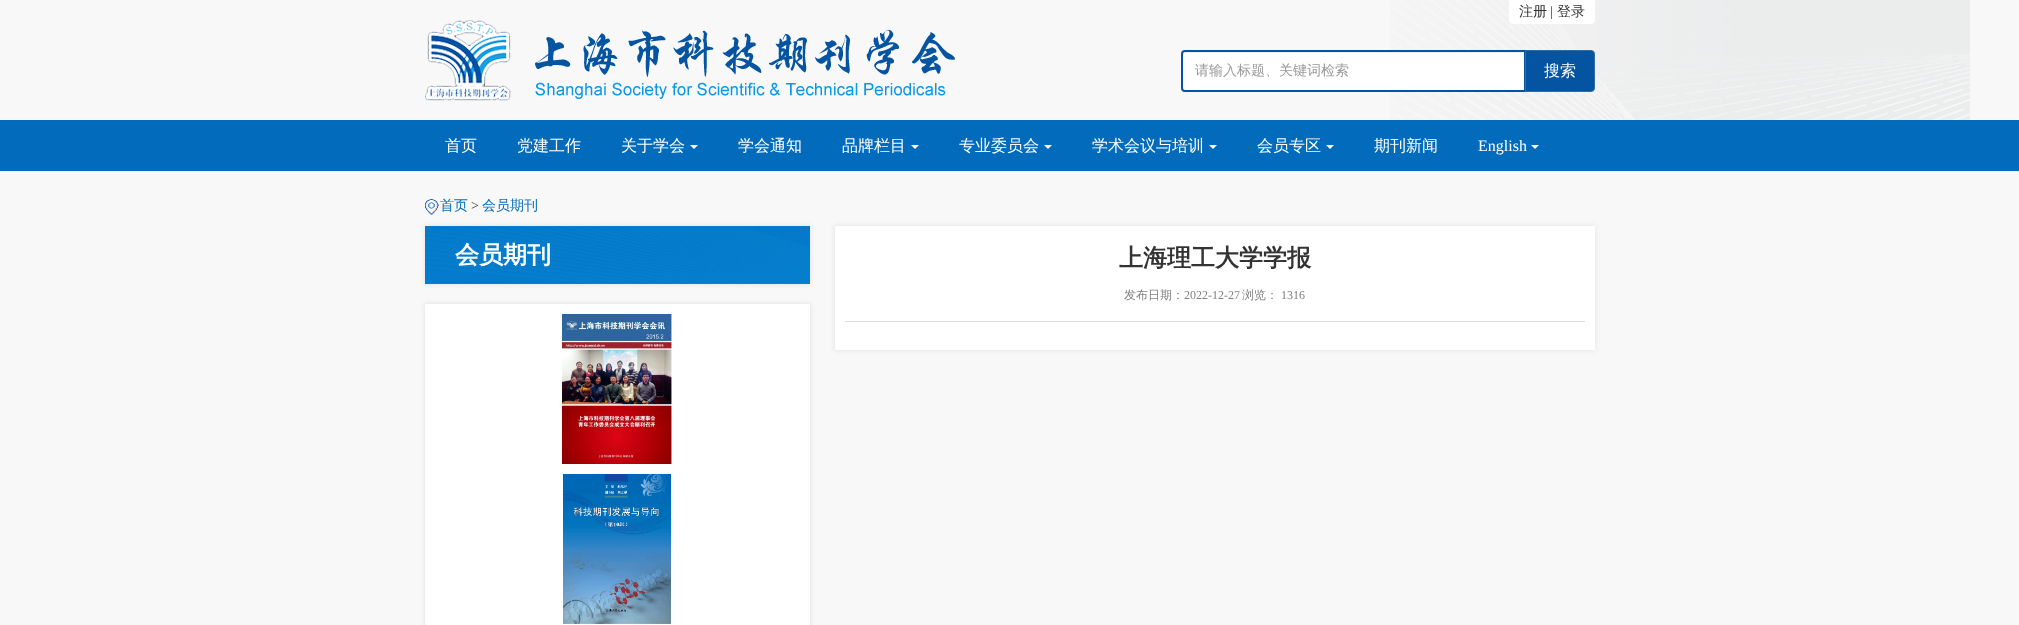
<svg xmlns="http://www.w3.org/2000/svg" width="2019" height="625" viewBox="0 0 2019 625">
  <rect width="100%" height="100%" fill="#f8f8f8"/>
  <image x="1390" y="0" width="580" height="120" href="img/1.png"/>
  <path d="M1509 0H1595V20C1595 22 1593 24 1591 24H1513C1511 24 1509 22 1509 20Z" fill="#fff"/>
  <image x="1181" y="50" width="414" height="42" href="img/2.png"/>
  <image x="425" y="20" width="530" height="81" href="img/3.png"/>
  <path d="M0 120h2019v51H0z" fill="#026bbc"/>
  <path d="M690 145H698L694 149Z" fill="#fff"/>
  <path d="M911 145H919L915 149Z" fill="#fff"/>
  <path d="M1044 145H1052L1048 149Z" fill="#fff"/>
  <path d="M1209 145H1217L1213 149Z" fill="#fff"/>
  <path d="M1326 145H1334L1330 149Z" fill="#fff"/>
  <path d="M1531 145H1539L1535 149Z" fill="#fff"/>
  <image x="425" y="199" width="14" height="16" href="img/4.png"/>
  <path d="M425 226h385v58H425z" fill="#ddd" filter="blur(2.5px)"/>
  <image x="425" y="226" width="385" height="58" href="img/5.png"/>
  <path d="M425 304h385v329H425z" fill="#ddd" filter="blur(2.5px)"/>
  <path d="M425 304h385v321H425z" fill="#fff"/>
  <image x="562" y="314" width="110" height="150" href="img/6.png"/>
  <image x="563" y="474" width="108" height="150" href="img/7.png"/>
  <path d="M835 226h760v124H835z" fill="#ddd" filter="blur(2.5px)"/>
  <path d="M835 226h760v124H835z" fill="#fff"/>
  <path d="M845 321h740v1H845z" fill="#dbdbdb"/>
  <text x="1519" y="16" font-family="WenQuanYi Zen Hei" font-size="14" font-weight="500" fill="#333">注册</text>
  <text x="1550" y="16" font-family="Liberation Serif" font-size="14" fill="#333">|</text>
  <text x="1557" y="16" font-family="WenQuanYi Zen Hei" font-size="14" font-weight="500" fill="#333">登录</text>
  <g font-family="WenQuanYi Zen Hei" font-size="16" font-weight="500" fill="#fff">
    <text x="445" y="151">首页</text>
    <text x="517" y="151">党建工作</text>
    <text x="621" y="151">关于学会</text>
    <text x="738" y="151">学会通知</text>
    <text x="842" y="151">品牌栏目</text>
    <text x="959" y="151">专业委员会</text>
    <text x="1092" y="151">学术会议与培训</text>
    <text x="1257" y="151">会员专区</text>
    <text x="1374" y="151">期刊新闻</text>
  </g>
  <text x="1478" y="151" font-family="Liberation Serif" font-size="16" fill="#fff">English</text>
  <text x="440" y="210" font-family="WenQuanYi Zen Hei" font-size="14" font-weight="500" fill="#026bbc">首页</text>
  <text x="471" y="210" font-family="Liberation Serif" font-size="14" fill="#333">&gt;</text>
  <text x="482" y="210" font-family="WenQuanYi Zen Hei" font-size="14" font-weight="500" fill="#026bbc">会员期刊</text>
  <text x="455" y="263" font-family="WenQuanYi Zen Hei" font-size="24" font-weight="bold" fill="#fff">会员期刊</text>
  <text x="1119" y="266" font-family="WenQuanYi Zen Hei" font-size="24" font-weight="bold" fill="#333">上海理工大学学报</text>
  <text x="1124" y="299" font-family="WenQuanYi Zen Hei" font-size="12" font-weight="500" fill="#808080">发布日期：</text>
  <text x="1184" y="299" font-family="Liberation Serif" font-size="12" fill="#808080">2022-12-27</text>
  <text x="1242" y="299" font-family="WenQuanYi Zen Hei" font-size="12" font-weight="500" fill="#808080">浏览：</text>
  <text x="1281" y="299" font-family="Liberation Serif" font-size="12" fill="#808080">1316</text>
</svg>
